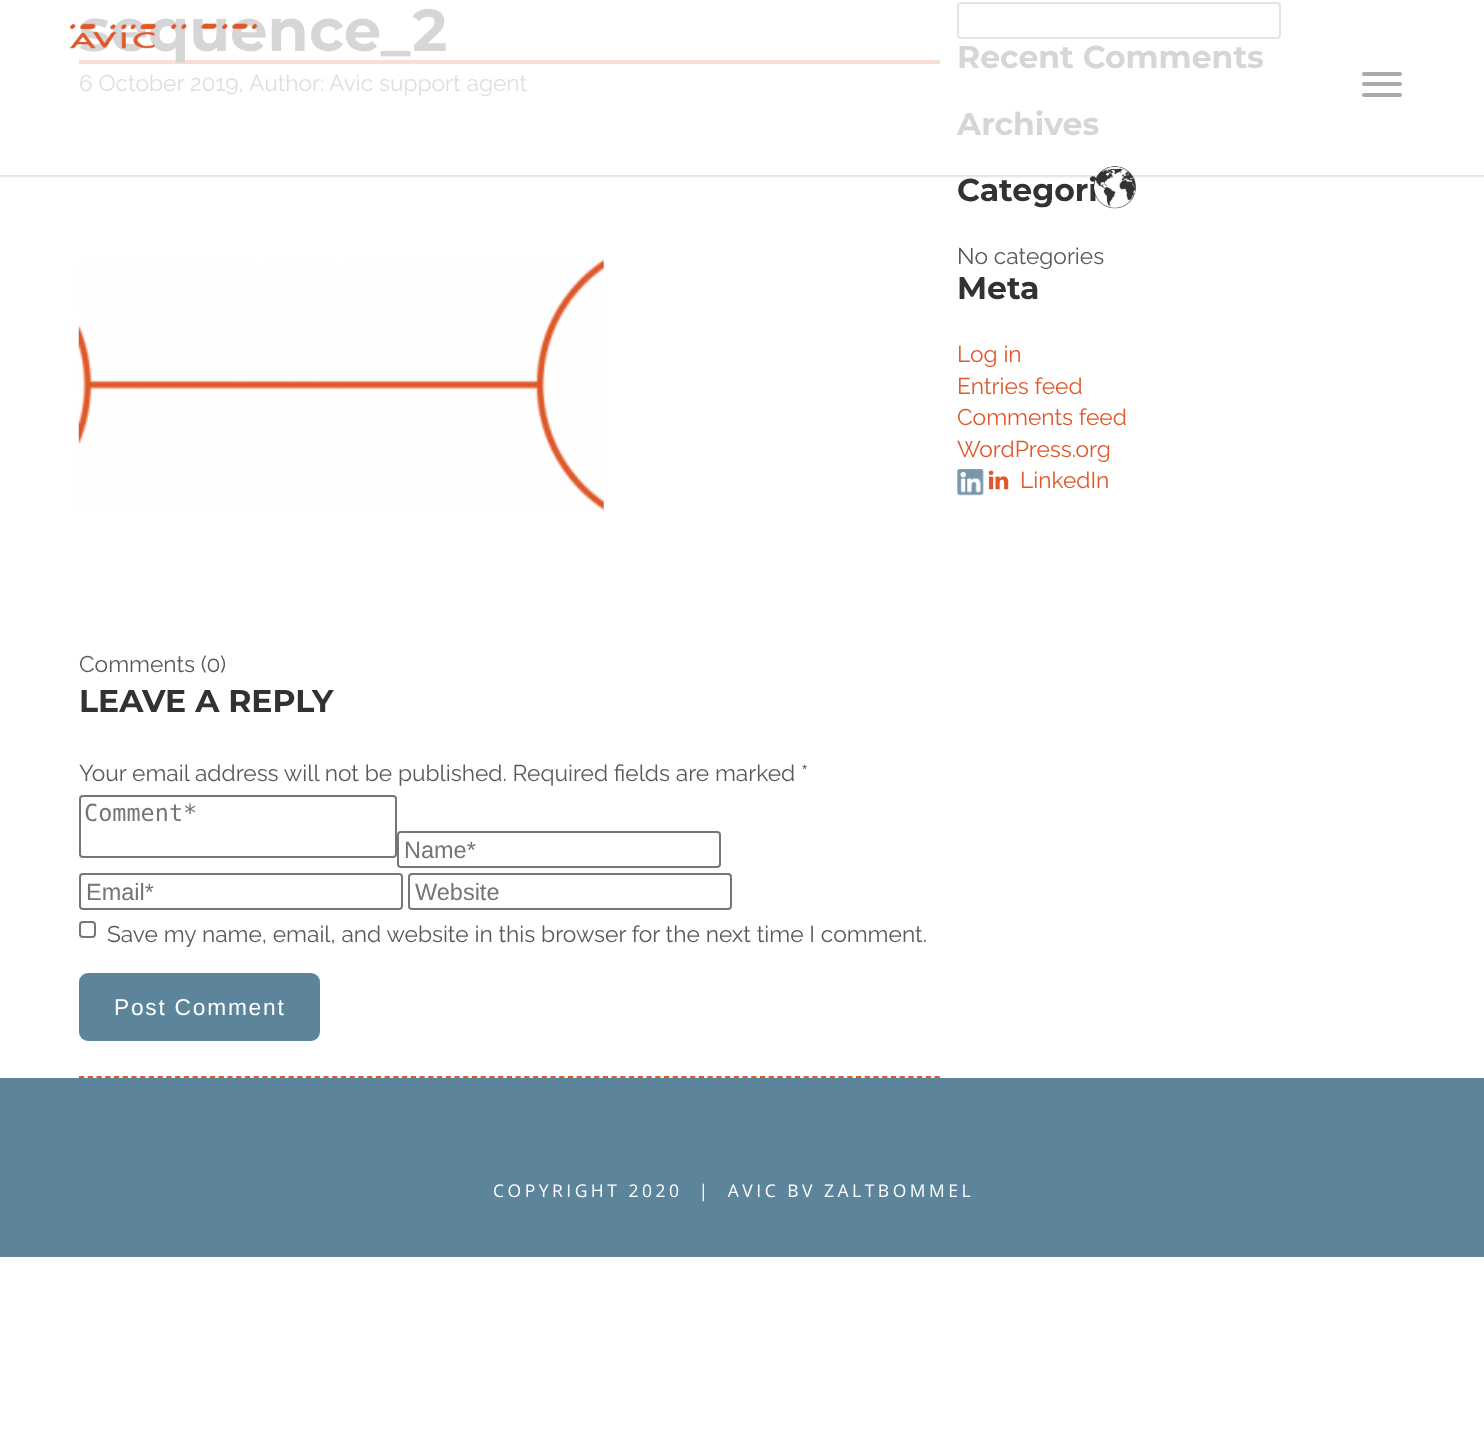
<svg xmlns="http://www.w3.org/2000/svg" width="1484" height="1442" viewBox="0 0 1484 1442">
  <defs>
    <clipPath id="clip1"><path d="M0 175h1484v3H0z"/></clipPath>
  </defs>
  <rect width="100%" height="100%" fill="#fff"/>
  <path d="M79 60h861v4H79z" fill="#f9ded4"/>
  <rect x="958" y="3" width="322" height="35" rx="3" fill="none" stroke="#e4e4e4" stroke-width="2"/>
  <g clip-path="url(#clip1)">
    <path d="M-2 -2h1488v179H-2z" fill="#0000001f" filter="blur(1px)"/>
  </g>
  <rect x="1362" y="72" width="40" height="4" rx="2" fill="#aaa"/>
  <rect x="1362" y="82" width="40" height="4" rx="2" fill="#aaa"/>
  <rect x="1362" y="93" width="40" height="4" rx="2" fill="#aaa"/>
  <image x="78" y="258" width="526" height="253" href="img/1.png"/>
  <rect x="80" y="796" width="316" height="61" rx="3" fill="none" stroke="#767676" stroke-width="2"/>
  <rect x="398" y="832" width="322" height="35" rx="3" fill="none" stroke="#767676" stroke-width="2"/>
  <rect x="80" y="874" width="322" height="35" rx="3" fill="none" stroke="#767676" stroke-width="2"/>
  <rect x="409" y="874" width="322" height="35" rx="3" fill="none" stroke="#767676" stroke-width="2"/>
  <rect x="80" y="922" width="15" height="15" rx="3" fill="none" stroke="#767676" stroke-width="2"/>
  <rect x="79" y="973" width="241" height="68" rx="9" fill="#5c859c"/>
  <path d="M79 1077H940" fill="none" stroke="#e0582a" stroke-width="1.8" stroke-dasharray="5.25 3.48"/>
  <image x="957" y="469" width="27" height="27" href="img/2.png"/>
  <image x="988" y="470" width="21" height="20" href="img/3.png"/>
  <path d="M0 1078h1484v179H0z" fill="#5c859c"/>
  <text x="79" y="51" font-family="Montserrat" font-size="59.5" font-weight="bold" fill="#d6d6d6">sequence_2</text>
  <g font-family="Raleway" font-size="22.75" font-weight="100" fill="#dedede">
    <text x="79" y="91">6 October 2019,</text>
    <text x="249" y="91">Author:</text>
    <text x="329" y="91">Avic support agent</text>
  </g>
  <text x="79" y="672" font-family="Raleway" font-size="22.75" font-weight="100" fill="#595959">Comments (0)</text>
  <text x="79" y="712" font-family="Montserrat" font-size="31.5" font-weight="bold" fill="#323232">LEAVE A REPLY</text>
  <text x="79" y="781" font-family="Raleway" font-size="22.75" font-weight="100" fill="#595959">Your email address will not be published. Required fields are marked *</text>
  <text x="84" y="821" font-family="DejaVu Sans Mono" font-size="23.5" fill="#757575">Comment*</text>
  <g font-family="Liberation Sans" font-size="23.5" fill="#757575">
    <text x="404" y="858">Name*</text>
    <text x="86" y="900">Email*</text>
    <text x="415" y="900">Website</text>
  </g>
  <text x="107" y="942" font-family="Raleway" font-size="22.75" font-weight="100" fill="#595959">Save my name, email, and website in this browser for the next time I comment.</text>
  <text x="114" y="1015" font-family="Liberation Sans" font-size="22.75" letter-spacing="1.75" fill="#fff">Post Comment</text>
  <g font-family="Montserrat" font-size="31.5" font-weight="bold" fill="#d6d6d6">
    <text x="957" y="68">Recent Comments</text>
    <text x="957" y="135">Archives</text>
  </g>
  <text x="957" y="201" font-family="Montserrat" font-size="31.5" font-weight="bold" fill="#323232">Categori</text>
  <text x="957" y="264" font-family="Raleway" font-size="22.75" font-weight="100" fill="#595959">No categories</text>
  <text x="957" y="299" font-family="Montserrat" font-size="31.5" font-weight="bold" fill="#323232">Meta</text>
  <g font-family="Raleway" font-size="22.75" font-weight="100" fill="#e0582a">
    <text x="957" y="362">Log in</text>
    <text x="957" y="394">Entries feed</text>
    <text x="957" y="425">Comments feed</text>
    <text x="957" y="457">WordPress.org</text>
    <text x="1020" y="488">LinkedIn</text>
  </g>
  <image x="70" y="23" width="188" height="26" href="img/4.png"/>
  <image x="1093" y="166" width="43" height="43" href="img/5.png"/>
  <text x="493" y="1197" font-family="Open Sans" font-size="17.5" letter-spacing="3.5" fill="#fff" xml:space="preserve">COPYRIGHT 2020  |  AVIC BV ZALTBOMMEL</text>
</svg>
